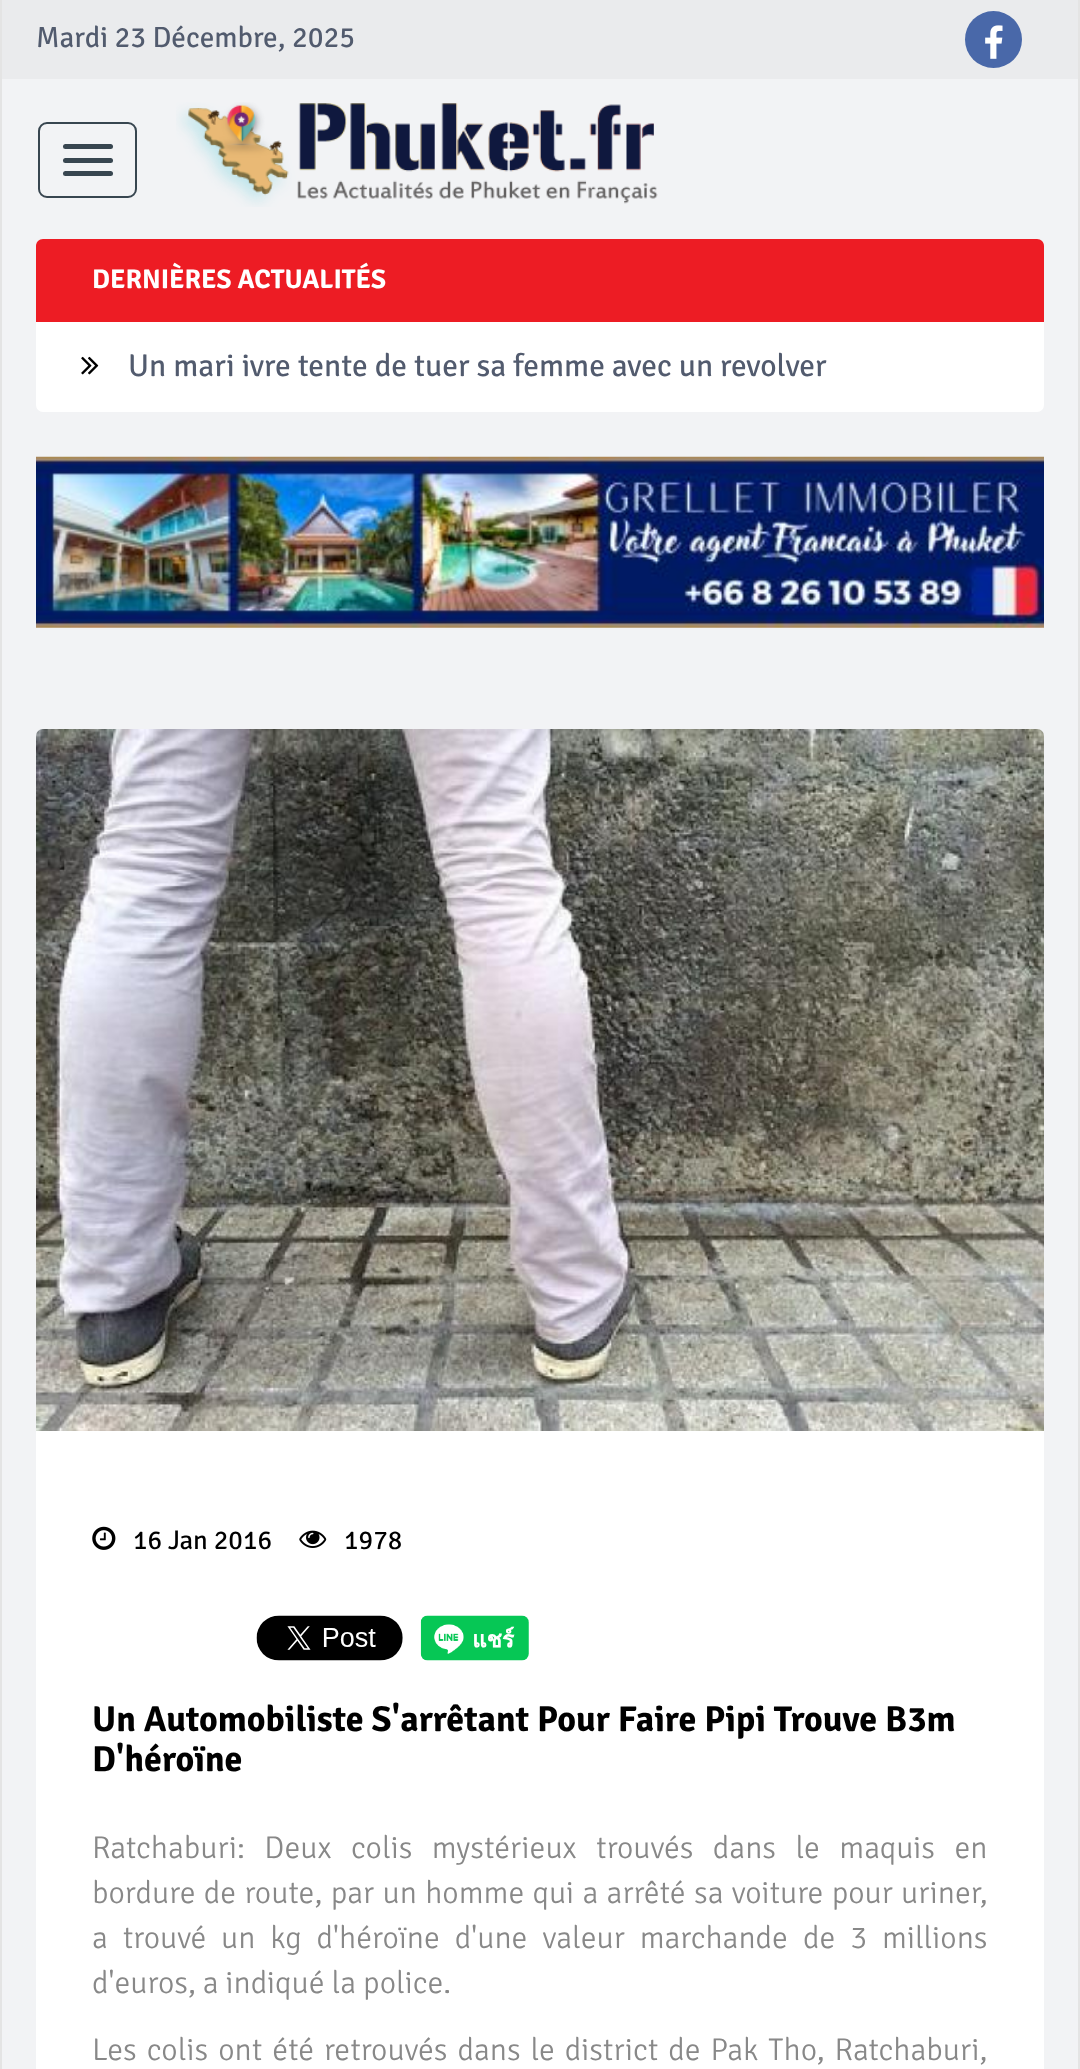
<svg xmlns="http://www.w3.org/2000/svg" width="1080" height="2069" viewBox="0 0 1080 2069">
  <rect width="100%" height="100%" fill="#f2f3f5"/>
  <path d="M1078 0h2v2069H1078z" fill="#e4e4e4"/>
  <path d="M0 0h2v2069H0z" fill="#e4e4e4"/>
  <path d="M2 0h1076v79H2z" fill="#eaebed"/>
  <circle cx="993.5" cy="39.5" r="28.5" fill="#4968a9"/>
  <image x="985" y="25" width="18" height="34" href="img/1.png"/>
  <rect x="39" y="123" width="97" height="74" rx="8" fill="none" stroke="#384650" stroke-width="2"/>
  <rect x="63" y="144" width="50" height="5" rx="2.5" fill="#384650"/>
  <rect x="63" y="158" width="50" height="5" rx="2.5" fill="#384650"/>
  <rect x="63" y="171" width="50" height="5" rx="2.5" fill="#384650"/>
  <image x="176" y="102" width="482" height="105" href="img/2.png"/>
  <rect x="36" y="239" width="1008" height="173" rx="7" fill="#fff"/>
  <path d="M43 239H1037C1041 239 1044 242 1044 246V322H36V246C36 242 39 239 43 239Z" fill="#ed1c24"/>
  <image x="81" y="356" width="18" height="19" href="img/3.png"/>
  <image x="36" y="456" width="1008" height="172" href="img/4.png"/>
  <rect x="36" y="729" width="1008" height="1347" rx="7" fill="#fff"/>
  <image x="36" y="729" width="1008" height="702" href="img/5.png"/>
  <image x="92" y="1526" width="24" height="24" href="img/6.png"/>
  <image x="299" y="1530" width="28" height="18" href="img/7.png"/>
  <image x="256" y="1615" width="147" height="46" href="img/8.png"/>
  <image x="420" y="1615" width="109" height="46" href="img/9.png"/>
  <text x="36" y="47" font-family="Signika Negative" font-size="29.25" fill="#525b6e">Mardi 23 Décembre, 2025</text>
  <text x="92" y="288" font-family="Signika Negative" font-size="27" font-weight="bold" fill="#fff">DERNIÈRES ACTUALITÉS</text>
  <text x="128" y="376" font-family="Signika Negative" font-size="31.5" fill="#525b6e">Un mari ivre tente de tuer sa femme avec un revolver</text>
  <g font-family="Signika Negative" font-size="27" fill="#000">
    <text x="133" y="1549">16 Jan 2016</text>
    <text x="344" y="1549">1978</text>
  </g>
  <g font-family="Signika Negative" font-size="36" font-weight="bold" fill="#000">
    <text x="92" y="1731">Un Automobiliste S'arrêtant Pour Faire Pipi Trouve B3m</text>
    <text x="92" y="1771">D'héroïne</text>
  </g>
  <g font-family="Signika Negative" font-size="31.5" font-weight="300" fill="#888">
    <text x="92" y="1858" word-spacing="12.5">Ratchaburi: Deux colis mystérieux trouvés dans le maquis en</text>
    <text x="92" y="1903" word-spacing="1.4">bordure de route, par un homme qui a arrêté sa voiture pour uriner,</text>
    <text x="92" y="1948" word-spacing="8">a trouvé</text>
    <text x="221" y="1948" word-spacing="8">un kg d'héroïne d'une valeur marchande de 3 millions</text>
    <text x="92" y="1993">d'euros, a indiqué la police.</text>
    <text x="92" y="2060" word-spacing="3">Les colis ont été retrouvés dans le district de Pak Tho, Ratchaburi,</text>
  </g>
</svg>
